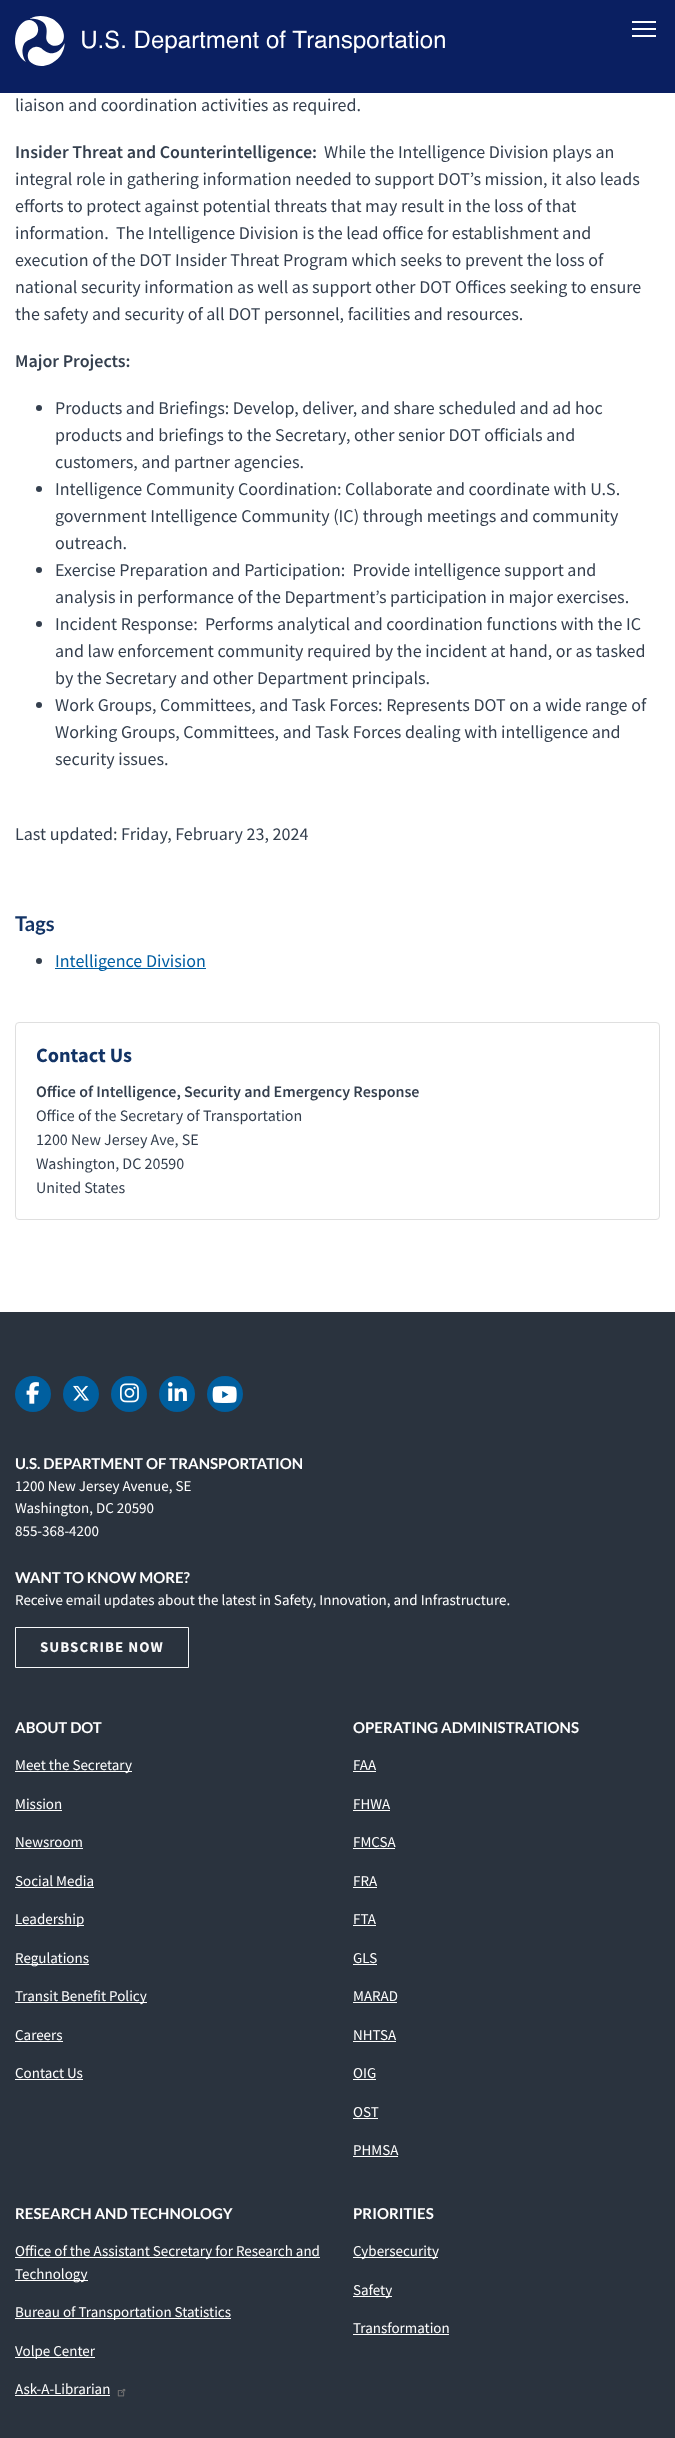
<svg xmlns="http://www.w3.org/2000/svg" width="675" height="2438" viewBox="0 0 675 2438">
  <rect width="100%" height="100%" fill="#2a333e"/>
  <path d="M0 0h675v93H0z" fill="#0a1f61"/>
  <image x="15" y="16" width="430" height="50" href="img/1.png"/>
  <path d="M632 21h24v2H632z" fill="#fff"/>
  <path d="M632 28h24v2H632z" fill="#fff"/>
  <path d="M632 35h24v2H632z" fill="#fff"/>
  <path d="M0 93h675v1219H0z" fill="#fff"/>
  <circle cx="39" cy="408" r="3" fill="#343f4e"/>
  <circle cx="39" cy="489" r="3" fill="#343f4e"/>
  <circle cx="39" cy="570" r="3" fill="#343f4e"/>
  <circle cx="39" cy="624" r="3" fill="#343f4e"/>
  <circle cx="39" cy="705" r="3" fill="#343f4e"/>
  <circle cx="39" cy="961" r="3" fill="#343f4e"/>
  <path d="M55 968h151v1H55z" fill="#005ea2"/>
  <rect x="15.5" y="1022.5" width="644" height="197" rx="3.5" fill="none" stroke="#dfdfdf"/>
  <circle cx="33" cy="1394" r="18" fill="#005f9f"/>
  <image x="26" y="1382" width="13" height="22" href="img/2.png"/>
  <circle cx="81" cy="1394" r="18" fill="#005f9f"/>
  <image x="73" y="1385" width="16" height="16" href="img/3.png"/>
  <circle cx="129" cy="1394" r="18" fill="#005f9f"/>
  <image x="120" y="1383" width="19" height="20" href="img/4.png"/>
  <circle cx="177" cy="1394" r="18" fill="#005f9f"/>
  <image x="168" y="1382" width="19" height="19" href="img/5.png"/>
  <circle cx="225" cy="1394" r="18" fill="#005f9f"/>
  <image x="212" y="1386" width="25" height="17" href="img/6.png"/>
  <path d="M15.5 1627.5h173v40H15.5z" fill="none" stroke="#f8f9fa"/>
  <path d="M15 1771h117v1H15z" fill="#fff"/>
  <path d="M15 1810h47v1H15z" fill="#fff"/>
  <path d="M15 1848h68v1H15z" fill="#fff"/>
  <path d="M15 1887h79v1H15z" fill="#fff"/>
  <path d="M15 1925h69v1H15z" fill="#fff"/>
  <path d="M15 1964h74v1H15z" fill="#fff"/>
  <path d="M15 2002h132v1H15z" fill="#fff"/>
  <path d="M15 2041h48v1H15z" fill="#fff"/>
  <path d="M15 2079h68v1H15z" fill="#fff"/>
  <path d="M353 1771h23v1H353z" fill="#fff"/>
  <path d="M353 1810h37v1H353z" fill="#fff"/>
  <path d="M353 1848h42v1H353z" fill="#fff"/>
  <path d="M353 1887h24v1H353z" fill="#fff"/>
  <path d="M353 1925h23v1H353z" fill="#fff"/>
  <path d="M353 1964h24v1H353z" fill="#fff"/>
  <path d="M353 2002h44v1H353z" fill="#fff"/>
  <path d="M353 2041h43v1H353z" fill="#fff"/>
  <path d="M353 2079h23v1H353z" fill="#fff"/>
  <path d="M353 2118h25v1H353z" fill="#fff"/>
  <path d="M353 2156h45v1H353z" fill="#fff"/>
  <path d="M15 2257h305v1H15z" fill="#fff"/>
  <path d="M15 2280h73v1H15z" fill="#fff"/>
  <path d="M15 2318h216v1H15z" fill="#fff"/>
  <path d="M15 2357h80v1H15z" fill="#fff"/>
  <path d="M15 2395h95v1H15z" fill="#fff"/>
  <image x="117" y="2388" width="9" height="9" href="img/7.png"/>
  <path d="M353 2257h85v1H353z" fill="#fff"/>
  <path d="M353 2296h39v1H353z" fill="#fff"/>
  <path d="M353 2334h96v1H353z" fill="#fff"/>
  <text x="15" y="111" font-family="Source Sans Pro" font-size="18" fill="#343f4e">liaison and coordination activities as required.</text>
  <text x="15" y="158" font-family="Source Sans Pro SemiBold" font-size="18" font-weight="600" fill="#343f4e">Insider Threat and Counterintelligence:</text>
  <g font-family="Source Sans Pro" font-size="18" fill="#343f4e">
    <text x="324" y="158">While the Intelligence Division plays an</text>
    <text x="15" y="185">integral role in gathering information needed to support DOT’s mission, it also leads</text>
    <text x="15" y="212">efforts to protect against potential threats that may result in the loss of that</text>
    <text x="15" y="239" xml:space="preserve">information.  The Intelligence Division is the lead office for establishment and</text>
    <text x="15" y="266">execution of the DOT Insider Threat Program which seeks to prevent the loss of</text>
    <text x="15" y="293">national security information as well as support other DOT Offices seeking to ensure</text>
    <text x="15" y="320">the safety and security of all DOT personnel, facilities and resources.</text>
  </g>
  <text x="15" y="367" font-family="Source Sans Pro SemiBold" font-size="18" font-weight="600" fill="#343f4e">Major Projects:</text>
  <g font-family="Source Sans Pro" font-size="18" fill="#343f4e">
    <text x="55" y="414">Products and Briefings: Develop, deliver, and share scheduled and ad hoc</text>
    <text x="55" y="441">products and briefings to the Secretary, other senior DOT officials and</text>
    <text x="55" y="468">customers, and partner agencies.</text>
    <text x="55" y="495">Intelligence Community Coordination: Collaborate and coordinate with U.S.</text>
    <text x="55" y="522">government Intelligence Community (IC) through meetings and community</text>
    <text x="55" y="549">outreach.</text>
    <text x="55" y="576" xml:space="preserve">Exercise Preparation and Participation:  Provide intelligence support and</text>
    <text x="55" y="603">analysis in performance of the Department’s participation in major exercises.</text>
    <text x="55" y="630" xml:space="preserve">Incident Response:  Performs analytical and coordination functions with the IC</text>
    <text x="55" y="657">and law enforcement community required by the incident at hand, or as tasked</text>
    <text x="55" y="684">by the Secretary and other Department principals.</text>
    <text x="55" y="711">Work Groups, Committees, and Task Forces: Represents DOT on a wide range of</text>
    <text x="55" y="738">Working Groups, Committees, and Task Forces dealing with intelligence and</text>
    <text x="55" y="765">security issues.</text>
    <text x="15" y="840">Last updated: Friday, February 23, 2024</text>
  </g>
  <text x="15" y="931" font-family="Lato" font-size="20.25" font-weight="bold" fill="#133466">Tags</text>
  <text x="55" y="967" font-family="Source Sans Pro" font-size="18" fill="#005ea2">Intelligence Division</text>
  <text x="36" y="1062" font-family="Source Sans Pro" font-size="20.25" font-weight="bold" fill="#133466">Contact Us</text>
  <text x="36" y="1097" font-family="Source Sans Pro SemiBold" font-size="16" font-weight="600" fill="#343f4e">Office of Intelligence, Security and Emergency Response</text>
  <g font-family="Source Sans Pro" font-size="16" fill="#343f4e">
    <text x="36" y="1121">Office of the Secretary of Transportation</text>
    <text x="36" y="1145">1200 New Jersey Ave, SE</text>
    <text x="36" y="1169">Washington, DC 20590</text>
    <text x="36" y="1193">United States</text>
  </g>
  <text x="15" y="1469" font-family="Lato" font-size="15" font-weight="bold" fill="#fff">U.S. DEPARTMENT OF TRANSPORTATION</text>
  <g font-family="Source Sans Pro" font-size="15" fill="#fff">
    <text x="15" y="1491">1200 New Jersey Avenue, SE</text>
    <text x="15" y="1513">Washington, DC 20590</text>
    <text x="15" y="1536">855-368-4200</text>
  </g>
  <text x="15" y="1583" font-family="Lato" font-size="15" font-weight="bold" fill="#fff">WANT TO KNOW MORE?</text>
  <text x="15" y="1605" font-family="Source Sans Pro" font-size="15" fill="#fff">Receive email updates about the latest in Safety, Innovation, and Infrastructure.</text>
  <text x="40" y="1652" font-family="Source Sans Pro" font-size="15" font-weight="bold" letter-spacing="1" fill="#f8f9fa">SUBSCRIBE NOW</text>
  <text x="15" y="1733" font-family="Lato" font-size="15" font-weight="bold" fill="#fff">ABOUT DOT</text>
  <g font-family="Source Sans Pro" font-size="15" fill="#fff">
    <text x="15" y="1770">Meet the Secretary</text>
    <text x="15" y="1809">Mission</text>
    <text x="15" y="1847">Newsroom</text>
    <text x="15" y="1886">Social Media</text>
    <text x="15" y="1924">Leadership</text>
    <text x="15" y="1963">Regulations</text>
    <text x="15" y="2001">Transit Benefit Policy</text>
    <text x="15" y="2040">Careers</text>
    <text x="15" y="2078">Contact Us</text>
  </g>
  <text x="353" y="1733" font-family="Lato" font-size="15" font-weight="bold" fill="#fff">OPERATING ADMINISTRATIONS</text>
  <g font-family="Source Sans Pro" font-size="15" fill="#fff">
    <text x="353" y="1770">FAA</text>
    <text x="353" y="1809">FHWA</text>
    <text x="353" y="1847">FMCSA</text>
    <text x="353" y="1886">FRA</text>
    <text x="353" y="1924">FTA</text>
    <text x="353" y="1963">GLS</text>
    <text x="353" y="2001">MARAD</text>
    <text x="353" y="2040">NHTSA</text>
    <text x="353" y="2078">OIG</text>
    <text x="353" y="2117">OST</text>
    <text x="353" y="2155">PHMSA</text>
  </g>
  <text x="15" y="2219" font-family="Lato" font-size="15" font-weight="bold" fill="#fff">RESEARCH AND TECHNOLOGY</text>
  <g font-family="Source Sans Pro" font-size="15" fill="#fff">
    <text x="15" y="2256">Office of the Assistant Secretary for Research and</text>
    <text x="15" y="2279">Technology</text>
    <text x="15" y="2317">Bureau of Transportation Statistics</text>
    <text x="15" y="2356">Volpe Center</text>
    <text x="15" y="2394">Ask-A-Librarian</text>
  </g>
  <text x="353" y="2219" font-family="Lato" font-size="15" font-weight="bold" fill="#fff">PRIORITIES</text>
  <g font-family="Source Sans Pro" font-size="15" fill="#fff">
    <text x="353" y="2256">Cybersecurity</text>
    <text x="353" y="2295">Safety</text>
    <text x="353" y="2333">Transformation</text>
  </g>
</svg>
